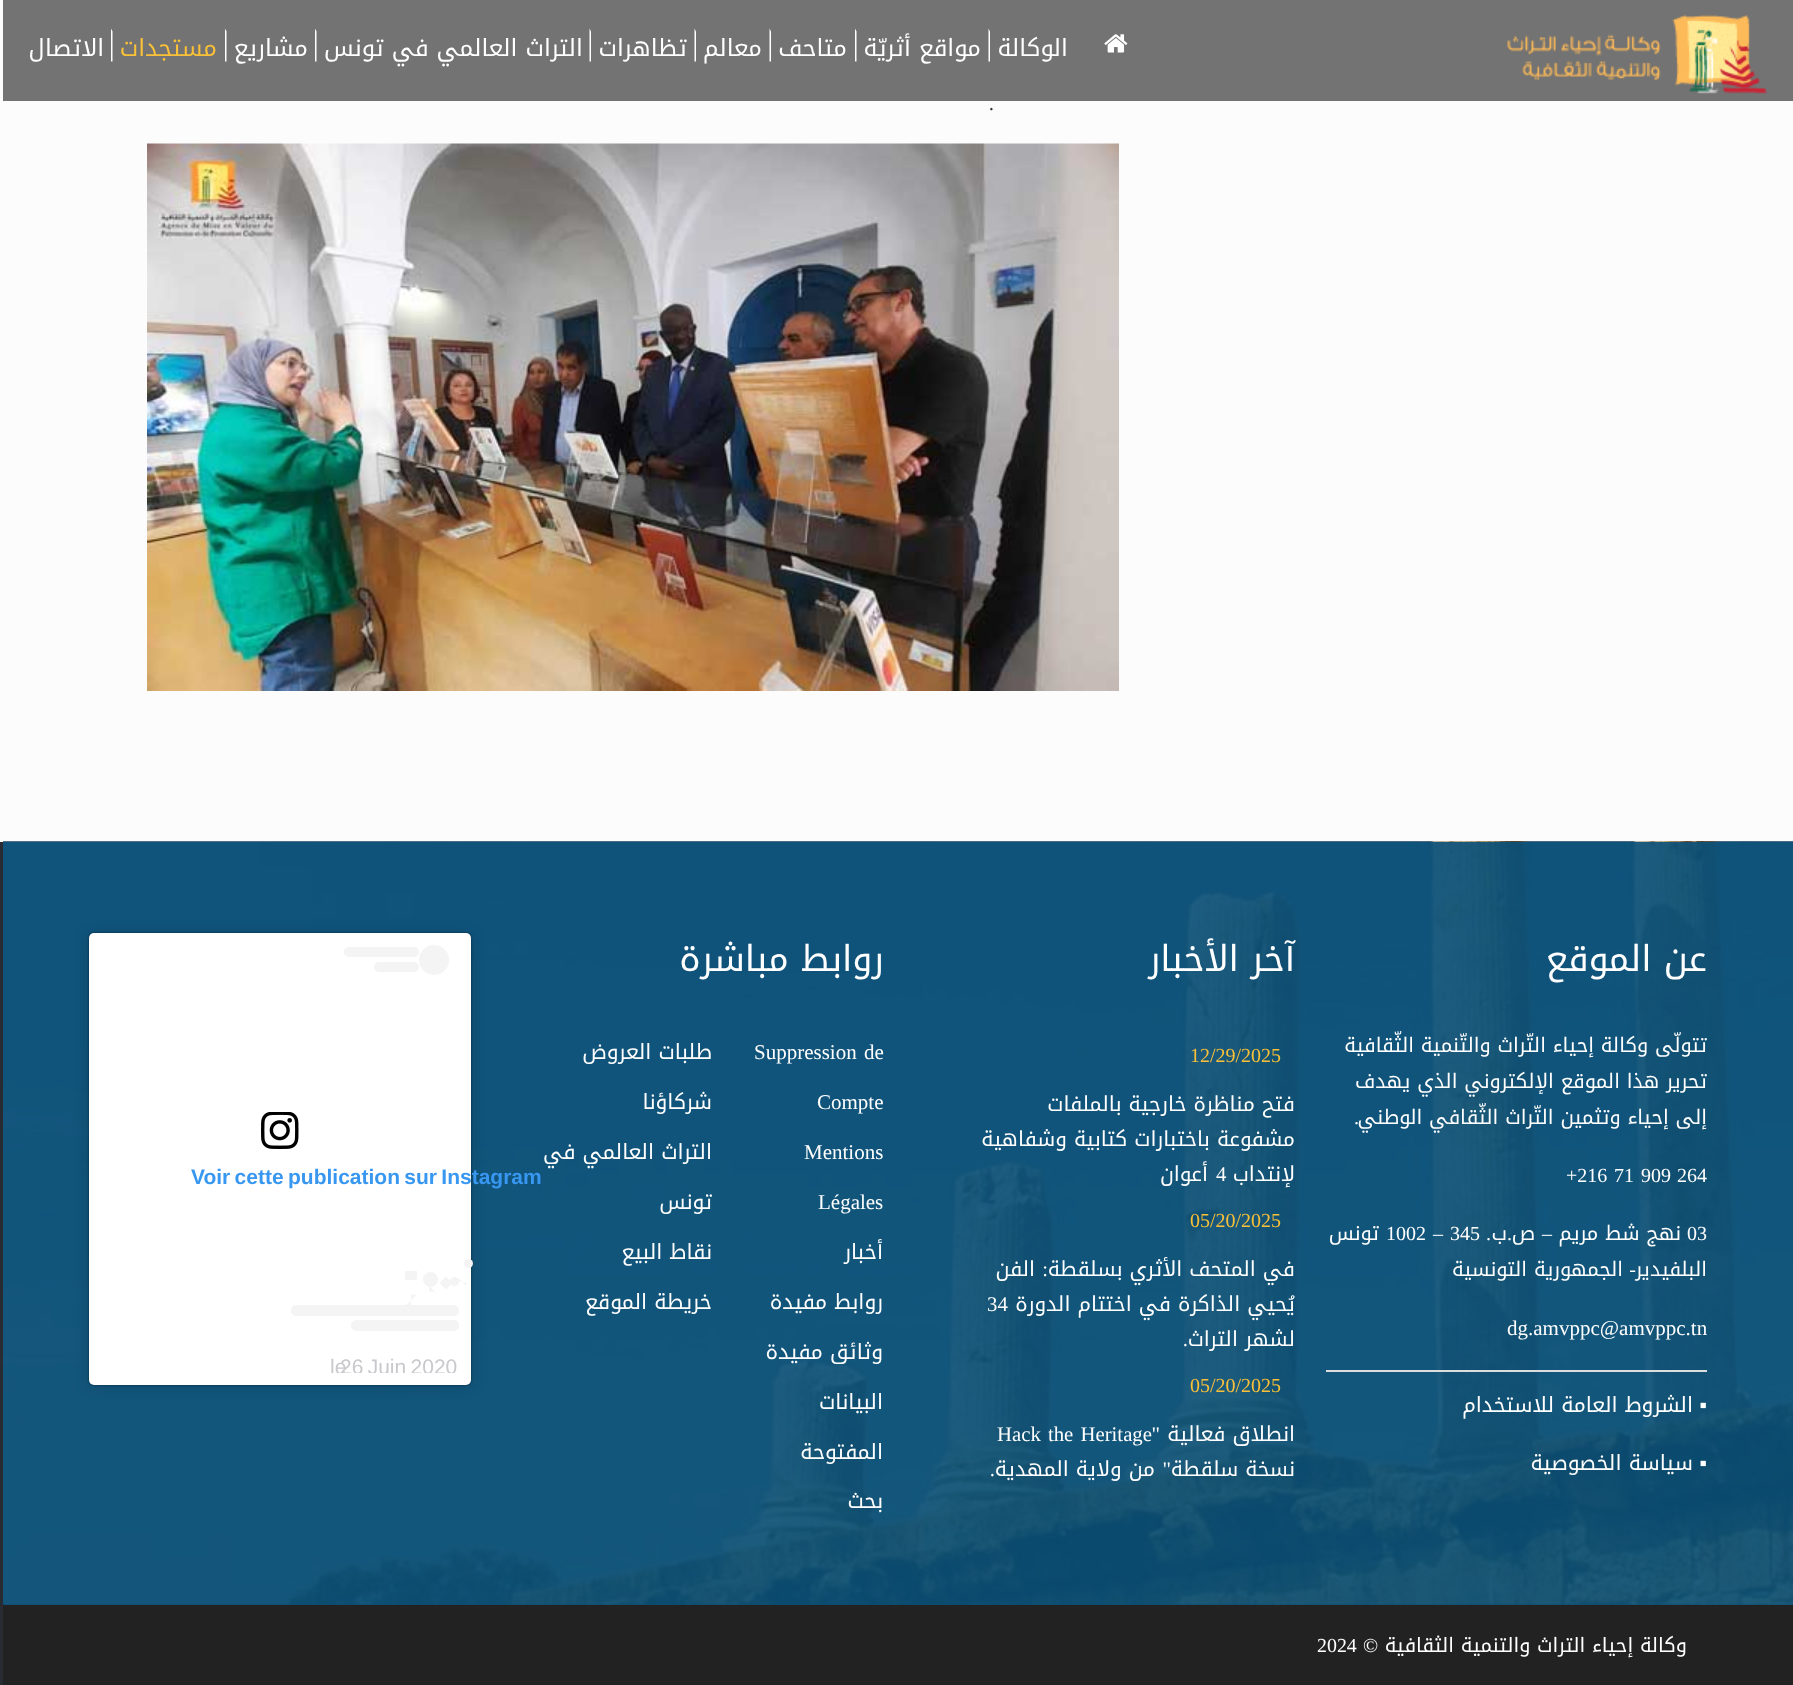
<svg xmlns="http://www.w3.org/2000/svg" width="1793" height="1685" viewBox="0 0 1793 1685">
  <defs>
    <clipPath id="clip1"><path d="M101 1349h358v24H101z"/></clipPath>
  </defs>
  <rect width="100%" height="100%" fill="#fcfcfc"/>
  <path d="M3 0h1790v101H3z" fill="#505050cc"/>
  <image x="1507" y="14" width="261" height="80" href="img/1.png"/>
  <image x="1104" y="34" width="24" height="19" href="img/2.png"/>
  <path d="M988.5 61.5V28.5L990 31.5V61.5Z" fill="#fff"/>
  <path d="M855 61.5V28.5L856.5 31.5V61.5Z" fill="#fff"/>
  <path d="M769.5 61.5V28.5L771 31.5V61.5Z" fill="#fff"/>
  <path d="M694.5 61.5V28.5L696 31.5V61.5Z" fill="#fff"/>
  <path d="M589.5 61.5V28.5L591 31.5V61.5Z" fill="#fff"/>
  <path d="M315 61.5V28.5L316.5 31.5V61.5Z" fill="#fff"/>
  <path d="M225 61.5V28.5L226.5 31.5V61.5Z" fill="#fff"/>
  <path d="M111 61.5V28.5L112.5 31.5V61.5Z" fill="#fff"/>
  <image x="147" y="143" width="972" height="548" href="img/3.png"/>
  <path d="M0 842h3v843H0z" fill="#292b33"/>
  <path d="M3 1604h1790v1H3z" fill="#0b4c72"/>
  <image x="3" y="841" width="1790" height="764" href="img/4.png"/>
  <path d="M1326 1370h381v2H1326z" fill="#ddd"/>
  <rect x="89" y="935" width="382" height="451" rx="5" fill="#00000026" filter="blur(7.5px)"/>
  <rect x="89" y="933" width="382" height="452" rx="5" fill="#00000080" filter="blur(1px)"/>
  <rect x="89" y="933" width="382" height="452" rx="5" fill="#fff"/>
  <circle cx="434" cy="960" r="15" fill="#f4f4f4"/>
  <rect x="344" y="947" width="75" height="10" rx="5" fill="#f4f4f4"/>
  <rect x="374" y="962" width="45" height="10" rx="5" fill="#f4f4f4"/>
  <image x="261" y="1112" width="38" height="37" href="img/5.png"/>
  <circle cx="468.5" cy="1263.5" r="4.5" fill="#f4f4f4"/>
  <circle cx="454.5" cy="1281.5" r="4.5" fill="#f4f4f4"/>
  <path d="M439.5 1283L446 1276.5L452.5 1283L446 1289.5Z" fill="#f4f4f4"/>
  <circle cx="430.5" cy="1279.5" r="7.5" fill="#f4f4f4"/>
  <rect x="291" y="1305" width="168" height="11" rx="5.5" fill="#f4f4f4"/>
  <path d="M457.5 1281L459 1278.5L465.5 1285.5L467 1283ZM411 1294.5H417L405 1306.5H411Z" fill="#f4f4f4"/>
  <path d="M405 1271h12v9H405z" fill="#f4f4f4"/>
  <path d="M423 1279.5H429V1291.5H435Z" fill="#f4f4f4"/>
  <rect x="351" y="1320" width="108" height="11" rx="5.5" fill="#f4f4f4"/>
  <path d="M3 1605h1790v80H3z" fill="#222"/>
  <g font-family="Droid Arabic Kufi" font-size="23.75" direction="rtl" fill="#fff">
    <text x="1068" y="56">الوكالة</text>
    <text x="981" y="56">مواقع أثريّة</text>
    <text x="847" y="56">متاحف</text>
    <text x="762" y="56">معالم</text>
    <text x="687" y="56">تظاهرات</text>
    <text x="583" y="56">التراث العالمي في تونس</text>
    <text x="308" y="56">مشاريع</text>
  </g>
  <text x="217" y="56" font-family="Droid Arabic Kufi" font-size="23.75" direction="rtl" fill="#fac038">مستجدات</text>
  <text x="104" y="56" font-family="Droid Arabic Kufi" font-size="23.75" direction="rtl" fill="#fff">الاتصال</text>
  <text x="994" y="110" font-family="Liberation Serif" font-size="21" direction="rtl" fill="#333">.</text>
  <text x="1707" y="971" font-family="Droid Arabic Kufi" font-size="35.75" direction="rtl" fill="#fff">عن الموقع</text>
  <g font-family="Droid Arabic Kufi" font-size="20" direction="rtl" fill="#fff">
    <text x="1707" y="1052">تتولّى وكالة إحياء التّراث والتّنمية الثّقافية</text>
    <text x="1707" y="1088">تحرير هذا الموقع الإلكتروني الذي يهدف</text>
    <text x="1707" y="1124">إلى إحياء وتثمين التّراث الثّقافي الوطني</text>
  </g>
  <text x="1359" y="1124" font-family="Liberation Serif" font-size="20" direction="rtl" fill="#fff">.</text>
  <g font-family="Liberation Serif" font-size="20" fill="#fff">
    <text x="1677" y="1182">264</text>
    <text x="1641" y="1182">909</text>
    <text x="1614" y="1182">71</text>
    <text x="1566" y="1182">+216</text>
    <text x="1687" y="1240">03</text>
  </g>
  <text x="1681" y="1240" font-family="Droid Arabic Kufi" font-size="20" direction="rtl" fill="#fff">نهج شط مريم</text>
  <text x="1552" y="1240" font-family="Liberation Serif" font-size="20" direction="rtl" fill="#fff">–</text>
  <g font-family="Droid Arabic Kufi" font-size="20" direction="rtl" fill="#fff">
    <text x="1535" y="1240">ص</text>
    <text x="1507" y="1240">ب</text>
  </g>
  <g font-family="Liberation Serif" font-size="20" fill="#fff">
    <text x="1450" y="1240">345</text>
    <text x="1433" y="1240">–</text>
    <text x="1386" y="1240">1002</text>
  </g>
  <text x="1379" y="1240" font-family="Droid Arabic Kufi" font-size="20" direction="rtl" fill="#fff">تونس</text>
  <g font-family="Liberation Serif" font-size="20" direction="rtl" fill="#fff">
    <text x="1512" y="1240">.</text>
    <text x="1491" y="1240">.</text>
    <text x="1636" y="1276">-</text>
  </g>
  <g font-family="Droid Arabic Kufi" font-size="20" direction="rtl" fill="#fff">
    <text x="1707" y="1276">البلفيدير</text>
    <text x="1623" y="1276">الجمهورية التونسية</text>
  </g>
  <text x="1507" y="1335" font-family="Liberation Serif" font-size="21" fill="#fff">dg.amvppc@amvppc.tn</text>
  <text x="1707" y="1412" font-family="Liberation Serif" font-size="21" direction="rtl" fill="#fff">▪</text>
  <text x="1693" y="1412" font-family="Droid Arabic Kufi" font-size="21" direction="rtl" fill="#fff">الشروط العامة للاستخدام</text>
  <text x="1707" y="1470" font-family="Liberation Serif" font-size="21" direction="rtl" fill="#fff">▪</text>
  <text x="1693" y="1470" font-family="Droid Arabic Kufi" font-size="21" direction="rtl" fill="#fff">سياسة الخصوصية</text>
  <text x="1295" y="971" font-family="Droid Arabic Kufi" font-size="35.75" direction="rtl" fill="#fff">آخر الأخبار</text>
  <text x="1190" y="1062" font-family="Liberation Serif" font-size="20" fill="#fac038">12/29/2025</text>
  <g font-family="Droid Arabic Kufi" font-size="20.75" direction="rtl" fill="#fff">
    <text x="1295" y="1111">فتح مناظرة خارجية بالملفات</text>
    <text x="1295" y="1146">مشفوعة باختبارات كتابية وشفاهية</text>
    <text x="1295" y="1181">لإنتداب</text>
  </g>
  <text x="1216" y="1181" font-family="Liberation Serif" font-size="20.75" fill="#fff">4</text>
  <text x="1208" y="1181" font-family="Droid Arabic Kufi" font-size="20.75" direction="rtl" fill="#fff">أعوان</text>
  <text x="1190" y="1227" font-family="Liberation Serif" font-size="20" fill="#fac038">05/20/2025</text>
  <text x="1295" y="1276" font-family="Droid Arabic Kufi" font-size="20.75" direction="rtl" fill="#fff">في المتحف الأثري بسلقطة</text>
  <text x="1048" y="1276" font-family="Liberation Serif" font-size="20.75" direction="rtl" fill="#fff">:</text>
  <g font-family="Droid Arabic Kufi" font-size="20.75" direction="rtl" fill="#fff">
    <text x="1035" y="1276">الفن</text>
    <text x="1295" y="1311">يُحيي الذاكرة في اختتام الدورة</text>
  </g>
  <text x="987" y="1311" font-family="Liberation Serif" font-size="20.75" fill="#fff">34</text>
  <text x="1295" y="1346" font-family="Droid Arabic Kufi" font-size="20.75" direction="rtl" fill="#fff">لشهر التراث</text>
  <text x="1188" y="1346" font-family="Liberation Serif" font-size="20.75" direction="rtl" fill="#fff">.</text>
  <text x="1190" y="1392" font-family="Liberation Serif" font-size="20" fill="#fac038">05/20/2025</text>
  <text x="1295" y="1441" font-family="Droid Arabic Kufi" font-size="20.75" direction="rtl" fill="#fff">انطلاق فعالية</text>
  <text x="1160" y="1441" font-family="Liberation Serif" font-size="20.75" direction="rtl" fill="#fff">"</text>
  <text x="997" y="1441" word-spacing="2" font-family="Liberation Serif" font-size="20.75" fill="#fff">Hack the Heritage</text>
  <text x="1295" y="1476" font-family="Droid Arabic Kufi" font-size="20.75" direction="rtl" fill="#fff">نسخة سلقطة</text>
  <text x="1171" y="1476" font-family="Liberation Serif" font-size="20.75" direction="rtl" fill="#fff">"</text>
  <text x="1155" y="1476" font-family="Droid Arabic Kufi" font-size="20.75" direction="rtl" fill="#fff">من ولاية المهدية</text>
  <text x="995" y="1476" font-family="Liberation Serif" font-size="20.75" direction="rtl" fill="#fff">.</text>
  <text x="884" y="971" font-family="Droid Arabic Kufi" font-size="35.75" direction="rtl" fill="#fff">روابط مباشرة</text>
  <g font-family="Liberation Serif" font-size="21" fill="#fff">
    <text x="754" y="1059" word-spacing="2">Suppression de</text>
    <text x="817" y="1109">Compte</text>
    <text x="804" y="1159">Mentions</text>
    <text x="818" y="1209">Légales</text>
  </g>
  <g font-family="Droid Arabic Kufi" font-size="21" direction="rtl" fill="#fff">
    <text x="883" y="1259">أخبار</text>
    <text x="883" y="1309">روابط مفيدة</text>
    <text x="883" y="1359">وثائق مفيدة</text>
    <text x="883" y="1409">البيانات</text>
    <text x="883" y="1459">المفتوحة</text>
    <text x="883" y="1508">بحث</text>
    <text x="712" y="1059">طلبات العروض</text>
    <text x="712" y="1109">شركاؤنا</text>
    <text x="712" y="1159">التراث العالمي في</text>
    <text x="712" y="1209">تونس</text>
    <text x="712" y="1259">نقاط البيع</text>
    <text x="712" y="1309">خريطة الموقع</text>
  </g>
  <text x="191" y="1184" word-spacing="-1.5" font-family="Liberation Sans" font-size="21" font-weight="bold" fill="#3897f0">Voir cette publication sur Instagram</text>
  <g clip-path="url(#clip1)">
    <g font-family="Liberation Sans" font-size="21" fill="#c9c8cd">
      <text x="330" y="1374">le</text>
      <text x="340" y="1374" word-spacing="-1.5">26 Juin 2020</text>
    </g>
  </g>
  <text x="1687" y="1652" font-family="Droid Arabic Kufi" font-size="19.9" direction="rtl" fill="#fff">وكالة إحياء التراث والتنمية الثقافية</text>
  <text x="1378" y="1652" font-family="Liberation Serif" font-size="19.9" direction="rtl" fill="#fff">©</text>
  <text x="1317" y="1652" font-family="Liberation Serif" font-size="19.9" fill="#fff">2024</text>
</svg>
